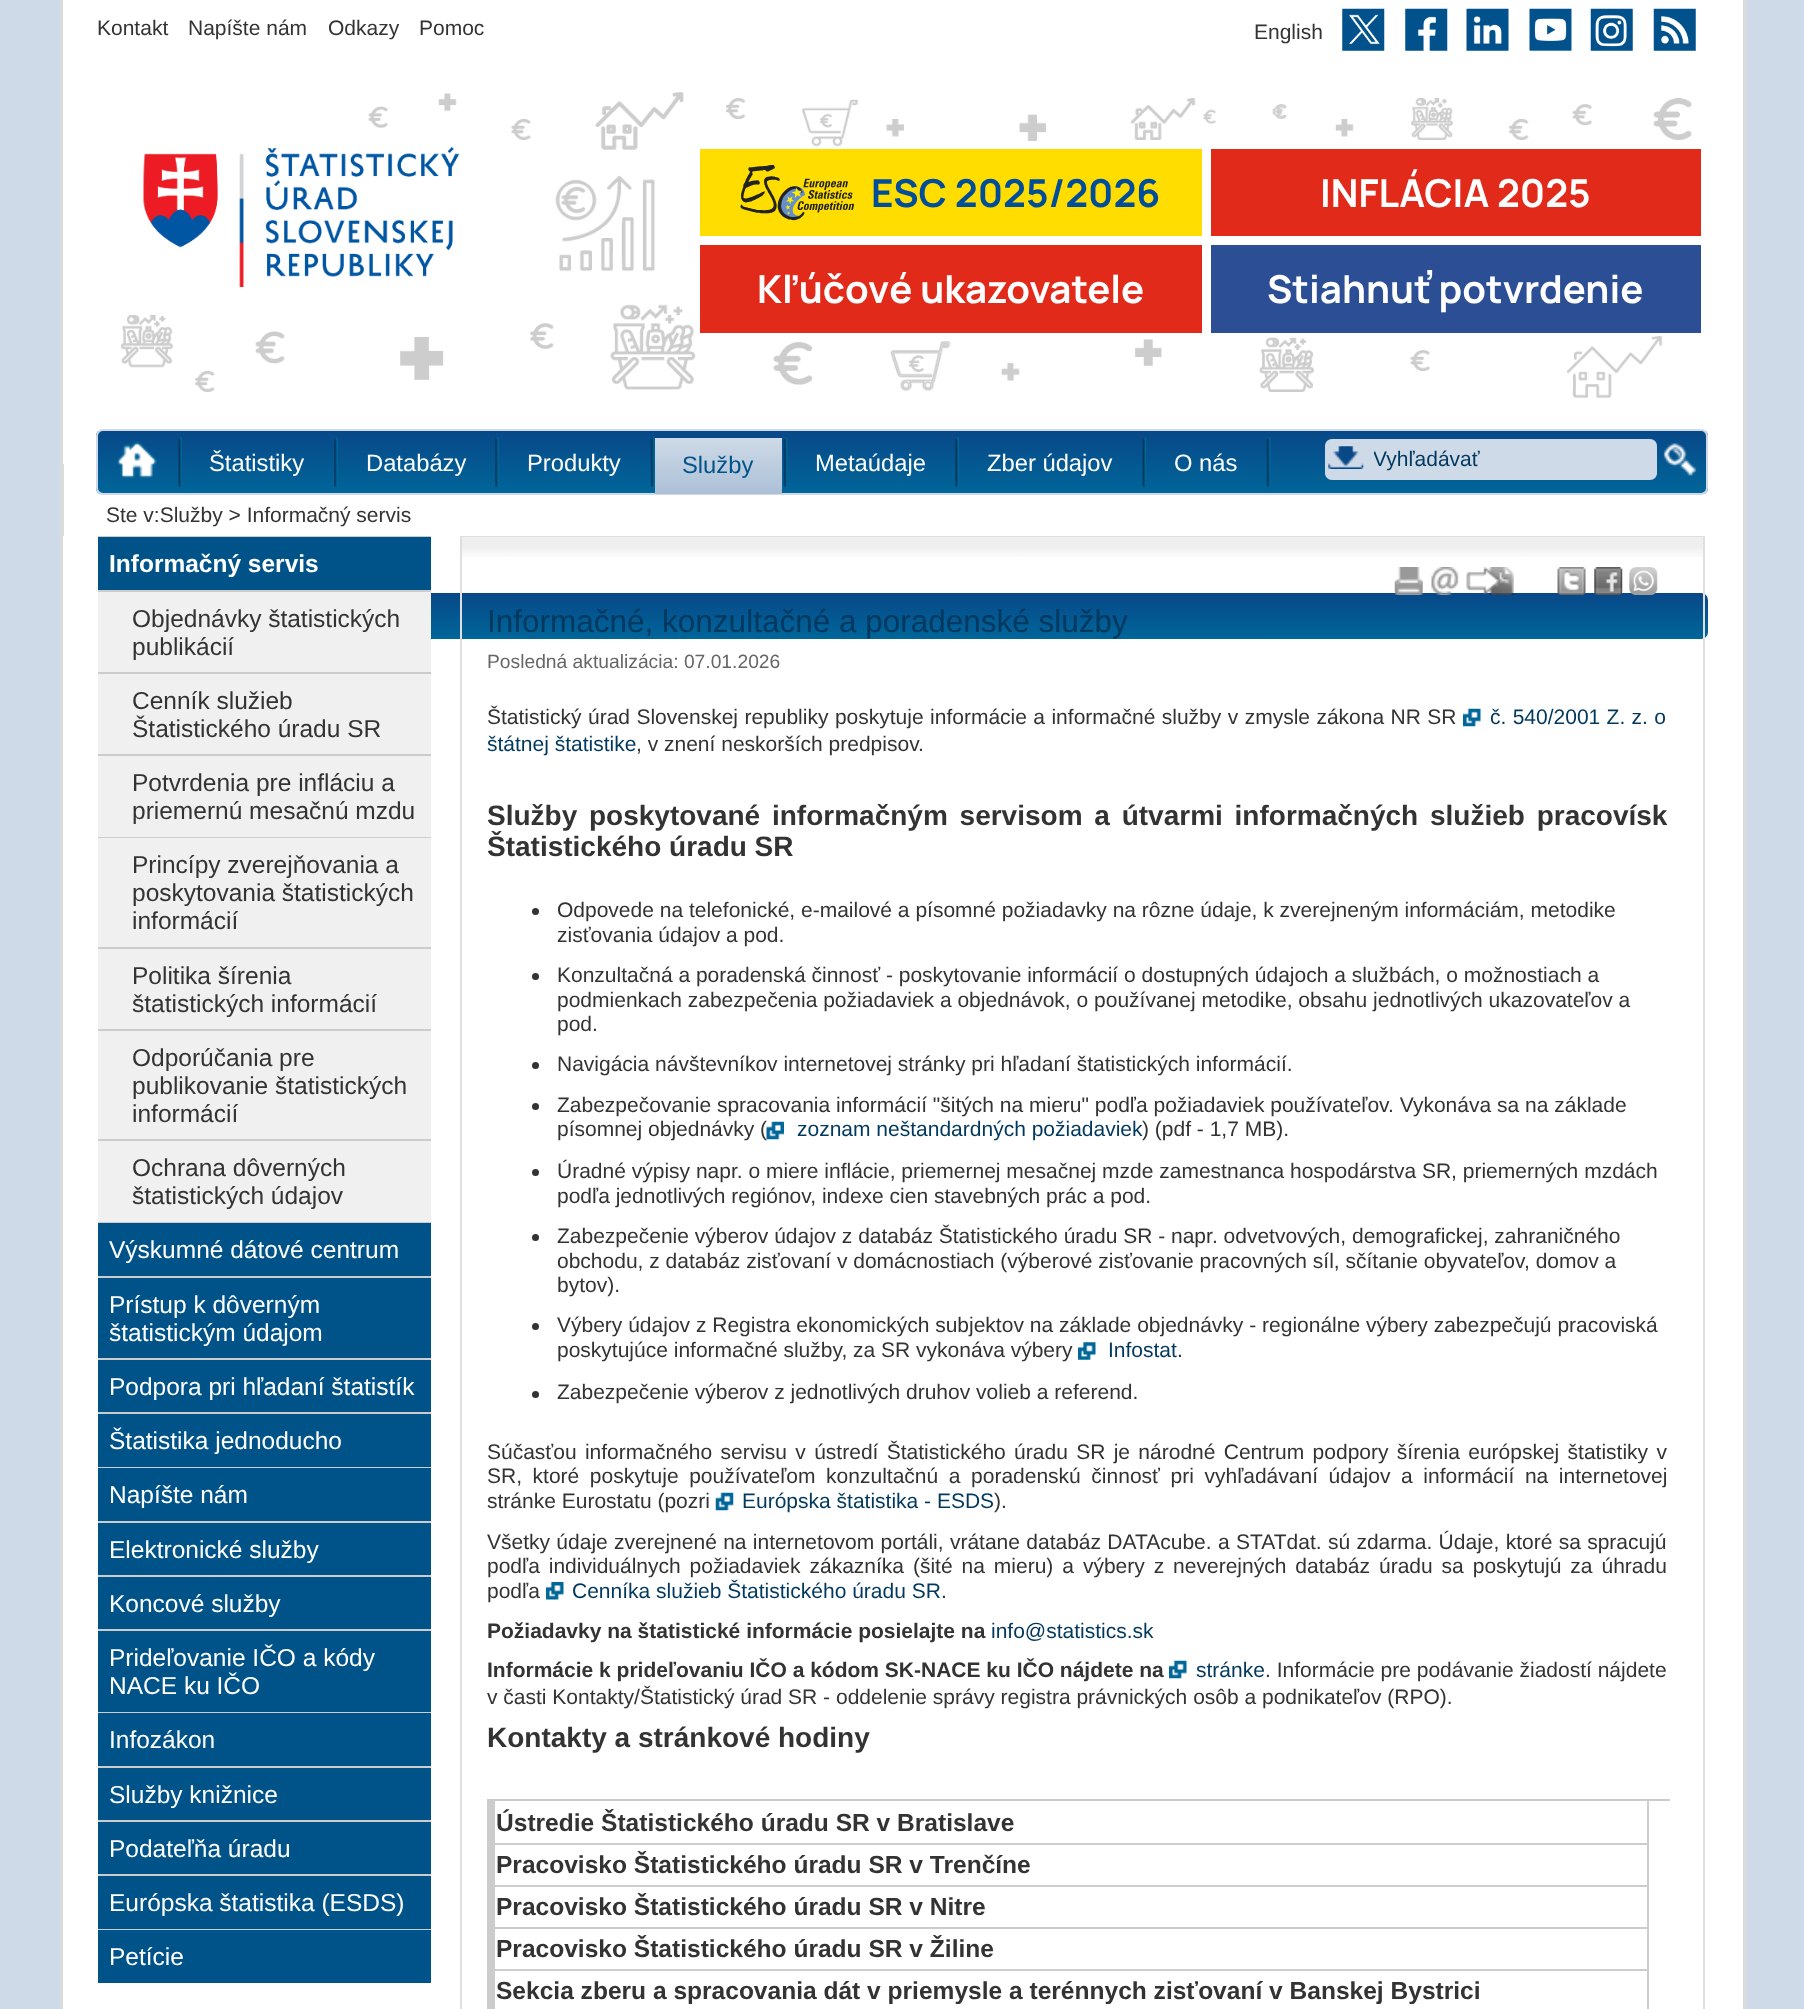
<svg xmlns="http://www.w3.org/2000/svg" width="1804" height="2009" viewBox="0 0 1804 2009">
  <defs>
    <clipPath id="clip1"><rect x="96" y="429" width="1612" height="66" rx="7"/></clipPath>
    <linearGradient id="g1" gradientUnits="userSpaceOnUse" x1="902" y1="430" x2="902" y2="494"><stop offset="0" stop-color="#084888"/><stop offset="1" stop-color="#069"/></linearGradient>
    <linearGradient id="g2" gradientUnits="userSpaceOnUse" x1="718" y1="438" x2="718" y2="494"><stop offset="0" stop-color="#cedae7"/><stop offset="1" stop-color="#acc0d7"/></linearGradient>
    <linearGradient id="g3" gradientUnits="userSpaceOnUse" x1="903" y1="593" x2="903" y2="639"><stop offset="0" stop-color="#084888"/><stop offset="1" stop-color="#069"/></linearGradient>
    <linearGradient id="g4" gradientUnits="userSpaceOnUse" x1="462" y1="537" x2="462" y2="569"><stop offset="0.3" stop-color="#efefef"/><stop offset="0.7" stop-color="#fff"/></linearGradient>
    <clipPath id="clip2"><path d="M1374 448h280v25H1374z"/></clipPath>
  </defs>
  <rect width="100%" height="100%" fill="#cedae7"/>
  <path d="M64 464h1679v72H64z" fill="#fff"/>
  <path d="M1743 0h4v2009H1743z" fill="#dadbdc"/>
  <path d="M60 0h4v2009H60z" fill="#dadbdc"/>
  <path d="M63 0h1680v464H63z" fill="#fff"/>
  <image x="1342" y="8" width="43" height="43" href="img/1.png"/>
  <image x="1405" y="8" width="43" height="43" href="img/2.png"/>
  <image x="1466" y="8" width="43" height="43" href="img/3.png"/>
  <image x="1529" y="8" width="43" height="43" href="img/4.png"/>
  <image x="1590" y="8" width="43" height="43" href="img/5.png"/>
  <image x="1653" y="8" width="43" height="43" href="img/6.png"/>
  <image x="120" y="92" width="1572" height="307" href="img/7.png"/>
  <image x="143" y="147" width="317" height="140" href="img/8.png"/>
  <path d="M700 149h502v87H700z" fill="#fd0"/>
  <image x="740" y="165" width="114" height="56" href="img/9.png"/>
  <path d="M1211 149h490v87H1211z" fill="#e12a19"/>
  <path d="M700 245h502v88H700z" fill="#e12a19"/>
  <path d="M1211 245h490v88H1211z" fill="#2c4e95"/>
  <g clip-path="url(#clip1)">
    <path d="M96 431h1612v63H96z" fill="url(#g1)"/>
  </g>
  <rect x="97" y="430" width="1610" height="64" rx="6" fill="none" stroke="#cedae7" stroke-width="2"/>
  <image x="117" y="441" width="40" height="38" href="img/10.png"/>
  <image x="178" y="437" width="4" height="50" href="img/11.png"/>
  <image x="334" y="437" width="4" height="50" href="img/12.png"/>
  <image x="495" y="437" width="4" height="50" href="img/12.png"/>
  <image x="650" y="437" width="5" height="50" href="img/13.png"/>
  <path d="M655 438h127v56H655z" fill="url(#g2)"/>
  <path d="M655 435h127v3H655z" fill="#084888"/>
  <image x="783" y="437" width="5" height="50" href="img/13.png"/>
  <image x="955" y="437" width="4" height="50" href="img/14.png"/>
  <image x="1142" y="437" width="5" height="50" href="img/15.png"/>
  <image x="1266" y="437" width="5" height="50" href="img/13.png"/>
  <path d="M1332 439H1370V480H1332C1328 480 1325 477 1325 473V446C1325 442 1328 439 1332 439Z" fill="#cedae7"/>
  <image x="1328" y="446" width="36" height="23" href="img/16.png"/>
  <path d="M1370 439H1650C1654 439 1657 442 1657 446V473C1657 477 1654 480 1650 480H1370Z" fill="#cedae7"/>
  <image x="1663" y="443" width="34" height="33" href="img/17.png"/>
  <path d="M63 536h1680v1473H63z" fill="#fff"/>
  <path d="M98 536h333v1H98z" fill="#ccc"/>
  <path d="M98 537h333v53H98z" fill="#005388"/>
  <path d="M98 590h333v2H98z" fill="#ccc"/>
  <rect x="98" y="593" width="1610" height="46" rx="7" fill="url(#g3)"/>
  <path d="M98 592h333v80H98z" fill="#f0f0f0"/>
  <path d="M98 672h333v2H98z" fill="#ccc"/>
  <path d="M98 674h333v80H98z" fill="#f0f0f0"/>
  <path d="M98 754h333v2H98z" fill="#ccc"/>
  <path d="M98 756h333v81H98z" fill="#f0f0f0"/>
  <path d="M98 837h333v1H98z" fill="#ccc"/>
  <path d="M98 838h333v109H98z" fill="#f0f0f0"/>
  <path d="M98 947h333v2H98z" fill="#ccc"/>
  <path d="M98 949h333v80H98z" fill="#f0f0f0"/>
  <path d="M98 1029h333v2H98z" fill="#ccc"/>
  <path d="M98 1031h333v108H98z" fill="#f0f0f0"/>
  <path d="M98 1139h333v2H98z" fill="#ccc"/>
  <path d="M98 1141h333v81H98z" fill="#f0f0f0"/>
  <path d="M98 1222h333v1H98z" fill="#ccc"/>
  <path d="M98 1223h333v53H98z" fill="#005388"/>
  <path d="M98 1276h333v2H98z" fill="#ccc"/>
  <path d="M98 1278h333v80H98z" fill="#005388"/>
  <path d="M98 1358h333v2H98z" fill="#ccc"/>
  <path d="M98 1360h333v52H98z" fill="#005388"/>
  <path d="M98 1412h333v2H98z" fill="#ccc"/>
  <path d="M98 1414h333v53H98z" fill="#005388"/>
  <path d="M98 1467h333v1H98z" fill="#ccc"/>
  <path d="M98 1468h333v53H98z" fill="#005388"/>
  <path d="M98 1521h333v2H98z" fill="#ccc"/>
  <path d="M98 1523h333v52H98z" fill="#005388"/>
  <path d="M98 1575h333v2H98z" fill="#ccc"/>
  <path d="M98 1577h333v52H98z" fill="#005388"/>
  <path d="M98 1629h333v2H98z" fill="#ccc"/>
  <path d="M98 1631h333v81H98z" fill="#005388"/>
  <path d="M98 1712h333v1H98z" fill="#ccc"/>
  <path d="M98 1713h333v53H98z" fill="#005388"/>
  <path d="M98 1766h333v2H98z" fill="#ccc"/>
  <path d="M98 1768h333v52H98z" fill="#005388"/>
  <path d="M98 1820h333v2H98z" fill="#ccc"/>
  <path d="M98 1822h333v52H98z" fill="#005388"/>
  <path d="M98 1874h333v2H98z" fill="#ccc"/>
  <path d="M98 1876h333v53H98z" fill="#005388"/>
  <path d="M98 1929h333v1H98z" fill="#ccc"/>
  <path d="M98 1930h333v53H98z" fill="#005388"/>
  <path d="M461 537h1243v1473H461z" fill="none" stroke="#dfdfdf" stroke-width="2"/>
  <path d="M462 537h1241v20H462z" fill="url(#g4)"/>
  <image x="1394" y="567" width="29" height="28" href="img/18.png"/>
  <image x="1431" y="567" width="28" height="28" href="img/19.png"/>
  <image x="1466" y="567" width="48" height="28" href="img/20.png"/>
  <image x="1557" y="567" width="29" height="28" href="img/21.png"/>
  <image x="1594" y="567" width="29" height="28" href="img/22.png"/>
  <image x="1629" y="567" width="29" height="28" href="img/23.png"/>
  <image x="1463" y="708" width="18" height="19" href="img/24.png"/>
  <circle cx="535.5" cy="911.5" r="3.5" fill="#333"/>
  <circle cx="535.5" cy="976.5" r="3.5" fill="#333"/>
  <circle cx="535.5" cy="1065.5" r="3.5" fill="#333"/>
  <circle cx="535.5" cy="1106.5" r="3.5" fill="#333"/>
  <circle cx="535.5" cy="1172.5" r="3.5" fill="#333"/>
  <circle cx="535.5" cy="1237.5" r="3.5" fill="#333"/>
  <circle cx="535.5" cy="1326.5" r="3.5" fill="#333"/>
  <image x="1078" y="1342" width="18" height="18" href="img/26.png"/>
  <circle cx="535.5" cy="1394.5" r="3.5" fill="#333"/>
  <image x="715" y="1492" width="19" height="19" href="img/27.png"/>
  <image x="546" y="1582" width="18" height="18" href="img/28.png"/>
  <image x="1169" y="1660" width="18" height="19" href="img/24.png"/>
  <path d="M487 1799h1183v2H487z" fill="#ccc"/>
  <path d="M1647 1801h2v44H1647z" fill="#ccc"/>
  <path d="M487 1843h1162v2H487z" fill="#ccc"/>
  <path d="M487 1801h8v44H487z" fill="#ccc"/>
  <path d="M1647 1843h2v44H1647z" fill="#ccc"/>
  <path d="M487 1885h1162v2H487z" fill="#ccc"/>
  <path d="M487 1843h8v44H487z" fill="#ccc"/>
  <path d="M1647 1885h2v44H1647z" fill="#ccc"/>
  <path d="M487 1927h1162v2H487z" fill="#ccc"/>
  <path d="M487 1885h8v44H487z" fill="#ccc"/>
  <path d="M1647 1927h2v44H1647z" fill="#ccc"/>
  <path d="M487 1969h1162v2H487z" fill="#ccc"/>
  <path d="M487 1927h8v82H487z" fill="#ccc"/>
  <path d="M1647 1969h2v40H1647z" fill="#ccc"/>
  <g font-family="Liberation Sans" font-size="21" fill="#333">
    <text x="97" y="35">Kontakt</text>
    <text x="188" y="35">Napíšte nám</text>
    <text x="328" y="35">Odkazy</text>
    <text x="419" y="35">Pomoc</text>
    <text x="1254" y="39">English</text>
  </g>
  <text x="871" y="207" font-family="Manrope" font-size="38.5" font-weight="200" fill="#004d99">ESC 2025/2026</text>
  <g font-family="Manrope" font-size="38.5" font-weight="200" fill="#fff">
    <text x="1320" y="207">INFLÁCIA 2025</text>
    <text x="757" y="303">Kľúčové ukazovatele</text>
    <text x="1267" y="303">Stiahnuť potvrdenie</text>
  </g>
  <g font-family="Liberation Sans" font-size="23.75" fill="#fff">
    <text x="209" y="471">Štatistiky</text>
    <text x="366" y="471">Databázy</text>
    <text x="527" y="471">Produkty</text>
  </g>
  <text x="682" y="473" font-family="Liberation Sans" font-size="23.75" fill="#005388">Služby</text>
  <g font-family="Liberation Sans" font-size="23.75" fill="#fff">
    <text x="815" y="471">Metaúdaje</text>
    <text x="987" y="471">Zber údajov</text>
    <text x="1174" y="471">O nás</text>
  </g>
  <g clip-path="url(#clip2)">
    <text x="1373" y="466" font-family="Liberation Sans" font-size="21" fill="#00385e">Vyhľadávať</text>
  </g>
  <text x="106" y="522" font-family="Liberation Sans" font-size="21" fill="#333">Ste v:Služby &gt; Informačný servis</text>
  <text x="109" y="572" font-family="Liberation Sans" font-size="24.5" font-weight="bold" fill="#fff">Informačný servis</text>
  <g font-family="Liberation Sans" font-size="24.5" fill="#333">
    <text x="132" y="627">Objednávky štatistických</text>
    <text x="132" y="655">publikácií</text>
    <text x="132" y="709">Cenník služieb</text>
    <text x="132" y="737">Štatistického úradu SR</text>
    <text x="132" y="791">Potvrdenia pre infláciu a</text>
    <text x="132" y="819">priemernú mesačnú mzdu</text>
    <text x="132" y="873">Princípy zverejňovania a</text>
    <text x="132" y="901">poskytovania štatistických</text>
    <text x="132" y="929">informácií</text>
    <text x="132" y="984">Politika šírenia</text>
    <text x="132" y="1012">štatistických informácií</text>
    <text x="132" y="1066">Odporúčania pre</text>
    <text x="132" y="1094">publikovanie štatistických</text>
    <text x="132" y="1122">informácií</text>
    <text x="132" y="1176">Ochrana dôverných</text>
    <text x="132" y="1204">štatistických údajov</text>
  </g>
  <g font-family="Liberation Sans" font-size="24.5" fill="#fff">
    <text x="109" y="1258">Výskumné dátové centrum</text>
    <text x="109" y="1313">Prístup k dôverným</text>
    <text x="109" y="1341">štatistickým údajom</text>
    <text x="109" y="1395">Podpora pri hľadaní štatistík</text>
    <text x="109" y="1449">Štatistika jednoducho</text>
    <text x="109" y="1503">Napíšte nám</text>
    <text x="109" y="1558">Elektronické služby</text>
    <text x="109" y="1612">Koncové služby</text>
    <text x="109" y="1666">Prideľovanie IČO a kódy</text>
    <text x="109" y="1694">NACE ku IČO</text>
    <text x="109" y="1748">Infozákon</text>
    <text x="109" y="1803">Služby knižnice</text>
    <text x="109" y="1857">Podateľňa úradu</text>
    <text x="109" y="1911">Európska štatistika (ESDS)</text>
    <text x="109" y="1965">Petície</text>
  </g>
  <text x="487" y="632" font-family="Liberation Sans" font-size="31.5" fill="#00385e">Informačné, konzultačné a poradenské služby</text>
  <text x="487" y="668" font-family="Liberation Sans" font-size="19.25" fill="#666">Posledná aktualizácia: 07.01.2026</text>
  <text x="487" y="724" word-spacing="0.6" font-family="Liberation Sans" font-size="21" fill="#333">Štatistický úrad Slovenskej republiky poskytuje informácie a informačné služby v zmysle zákona NR SR</text>
  <g font-family="Liberation Sans" font-size="21" fill="#00385e">
    <text x="1490" y="724" word-spacing="0.5">č. 540/2001 Z. z. o</text>
    <text x="487" y="751">štátnej štatistike</text>
  </g>
  <text x="636" y="751" font-family="Liberation Sans" font-size="21" fill="#333">, v znení neskorších predpisov.</text>
  <g font-family="Liberation Sans" font-size="28" font-weight="bold" fill="#333">
    <text x="487" y="825" word-spacing="4">Služby poskytované informačným servisom a útvarmi informačných služieb pracovísk</text>
    <text x="487" y="856">Štatistického úradu SR</text>
  </g>
  <g font-family="Liberation Sans" font-size="21" fill="#333">
    <text x="557" y="917">Odpovede na telefonické, e-mailové a písomné požiadavky na rôzne údaje, k zverejneným informáciám, metodike</text>
    <text x="557" y="942">zisťovania údajov a pod.</text>
    <text x="557" y="982">Konzultačná a poradenská činnosť - poskytovanie informácií o dostupných údajoch a službách, o možnostiach a</text>
    <text x="557" y="1007">podmienkach zabezpečenia požiadaviek a objednávok, o používanej metodike, obsahu jednotlivých ukazovateľov a</text>
    <text x="557" y="1031">pod.</text>
    <text x="557" y="1071">Navigácia návštevníkov internetovej stránky pri hľadaní štatistických informácií.</text>
    <text x="557" y="1112">Zabezpečovanie spracovania informácií "šitých na mieru" podľa požiadaviek používateľov. Vykonáva sa na základe</text>
    <text x="557" y="1136">písomnej objednávky (</text>
  </g>
  <image x="766" y="1121" width="18" height="19" href="img/25.png"/>
  <text x="797" y="1136" font-family="Liberation Sans" font-size="21" fill="#00385e">zoznam neštandardných požiadaviek</text>
  <g font-family="Liberation Sans" font-size="21" fill="#333">
    <text x="1142" y="1136">) (pdf - 1,7 MB).</text>
    <text x="557" y="1178">Úradné výpisy napr. o miere inflácie, priemernej mesačnej mzde zamestnanca hospodárstva SR, priemerných mzdách</text>
    <text x="557" y="1203">podľa jednotlivých regiónov, indexe cien stavebných prác a pod.</text>
    <text x="557" y="1243">Zabezpečenie výberov údajov z databáz Štatistického úradu SR - napr. odvetvových, demografickej, zahraničného</text>
    <text x="557" y="1268">obchodu, z databáz zisťovaní v domácnostiach (výberové zisťovanie pracovných síl, sčítanie obyvateľov, domov a</text>
    <text x="557" y="1292">bytov).</text>
    <text x="557" y="1332">Výbery údajov z Registra ekonomických subjektov na základe objednávky - regionálne výbery zabezpečujú pracoviská</text>
    <text x="557" y="1357">poskytujúce informačné služby, za SR vykonáva výbery</text>
  </g>
  <text x="1108" y="1357" font-family="Liberation Sans" font-size="21" fill="#00385e">Infostat</text>
  <g font-family="Liberation Sans" font-size="21" fill="#333">
    <text x="1177" y="1357">.</text>
    <text x="557" y="1399">Zabezpečenie výberov z jednotlivých druhov volieb a referend.</text>
    <text x="487" y="1459" word-spacing="2.5">Súčasťou informačného servisu v ústredí Štatistického úradu SR je národné Centrum podpory šírenia európskej štatistiky v</text>
    <text x="487" y="1483" word-spacing="4.75">SR, ktoré poskytuje používateľom konzultačnú a poradenskú činnosť pri vyhľadávaní údajov a informácií na internetovej</text>
    <text x="487" y="1508">stránke Eurostatu (pozri</text>
  </g>
  <text x="742" y="1508" font-family="Liberation Sans" font-size="21" fill="#00385e">Európska štatistika - ESDS</text>
  <g font-family="Liberation Sans" font-size="21" fill="#333">
    <text x="994" y="1508">).</text>
    <text x="487" y="1549" word-spacing="0.5">Všetky údaje zverejnené na internetovom portáli, vrátane databáz DATAcube. a STATdat. sú zdarma. Údaje, ktoré sa spracujú</text>
    <text x="487" y="1573" word-spacing="3.1">podľa individuálnych požiadaviek zákazníka (šité na mieru) a výbery z neverejných databáz úradu sa poskytujú za úhradu</text>
    <text x="487" y="1598">podľa</text>
  </g>
  <text x="572" y="1598" font-family="Liberation Sans" font-size="21" fill="#00385e">Cenníka služieb Štatistického úradu SR</text>
  <text x="941" y="1598" font-family="Liberation Sans" font-size="21" fill="#333">.</text>
  <text x="487" y="1638" font-family="Liberation Sans" font-size="21" font-weight="bold" fill="#333">Požiadavky na štatistické informácie posielajte na</text>
  <text x="991" y="1638" font-family="Liberation Sans" font-size="21" fill="#00385e">info@statistics.sk</text>
  <text x="487" y="1677" font-family="Liberation Sans" font-size="21" font-weight="bold" fill="#333">Informácie k prideľovaniu IČO a kódom SK-NACE ku IČO nájdete na</text>
  <text x="1196" y="1677" font-family="Liberation Sans" font-size="21" fill="#00385e">stránke</text>
  <g font-family="Liberation Sans" font-size="21" fill="#333">
    <text x="1265" y="1677">. Informácie pre podávanie žiadostí nájdete</text>
    <text x="487" y="1704">v časti Kontakty/Štatistický úrad SR - oddelenie správy registra právnických osôb a podnikateľov (RPO).</text>
  </g>
  <text x="487" y="1747" font-family="Liberation Sans" font-size="28" font-weight="bold" fill="#333">Kontakty a stránkové hodiny</text>
  <g font-family="Liberation Sans" font-size="24.55" font-weight="bold" fill="#333">
    <text x="496" y="1831">Ústredie Štatistického úradu SR v Bratislave</text>
    <text x="496" y="1873">Pracovisko Štatistického úradu SR v Trenčíne</text>
    <text x="496" y="1915">Pracovisko Štatistického úradu SR v Nitre</text>
    <text x="496" y="1957">Pracovisko Štatistického úradu SR v Žiline</text>
    <text x="496" y="1999">Sekcia zberu a spracovania dát v priemysle a terénnych zisťovaní v Banskej Bystrici</text>
  </g>
</svg>
